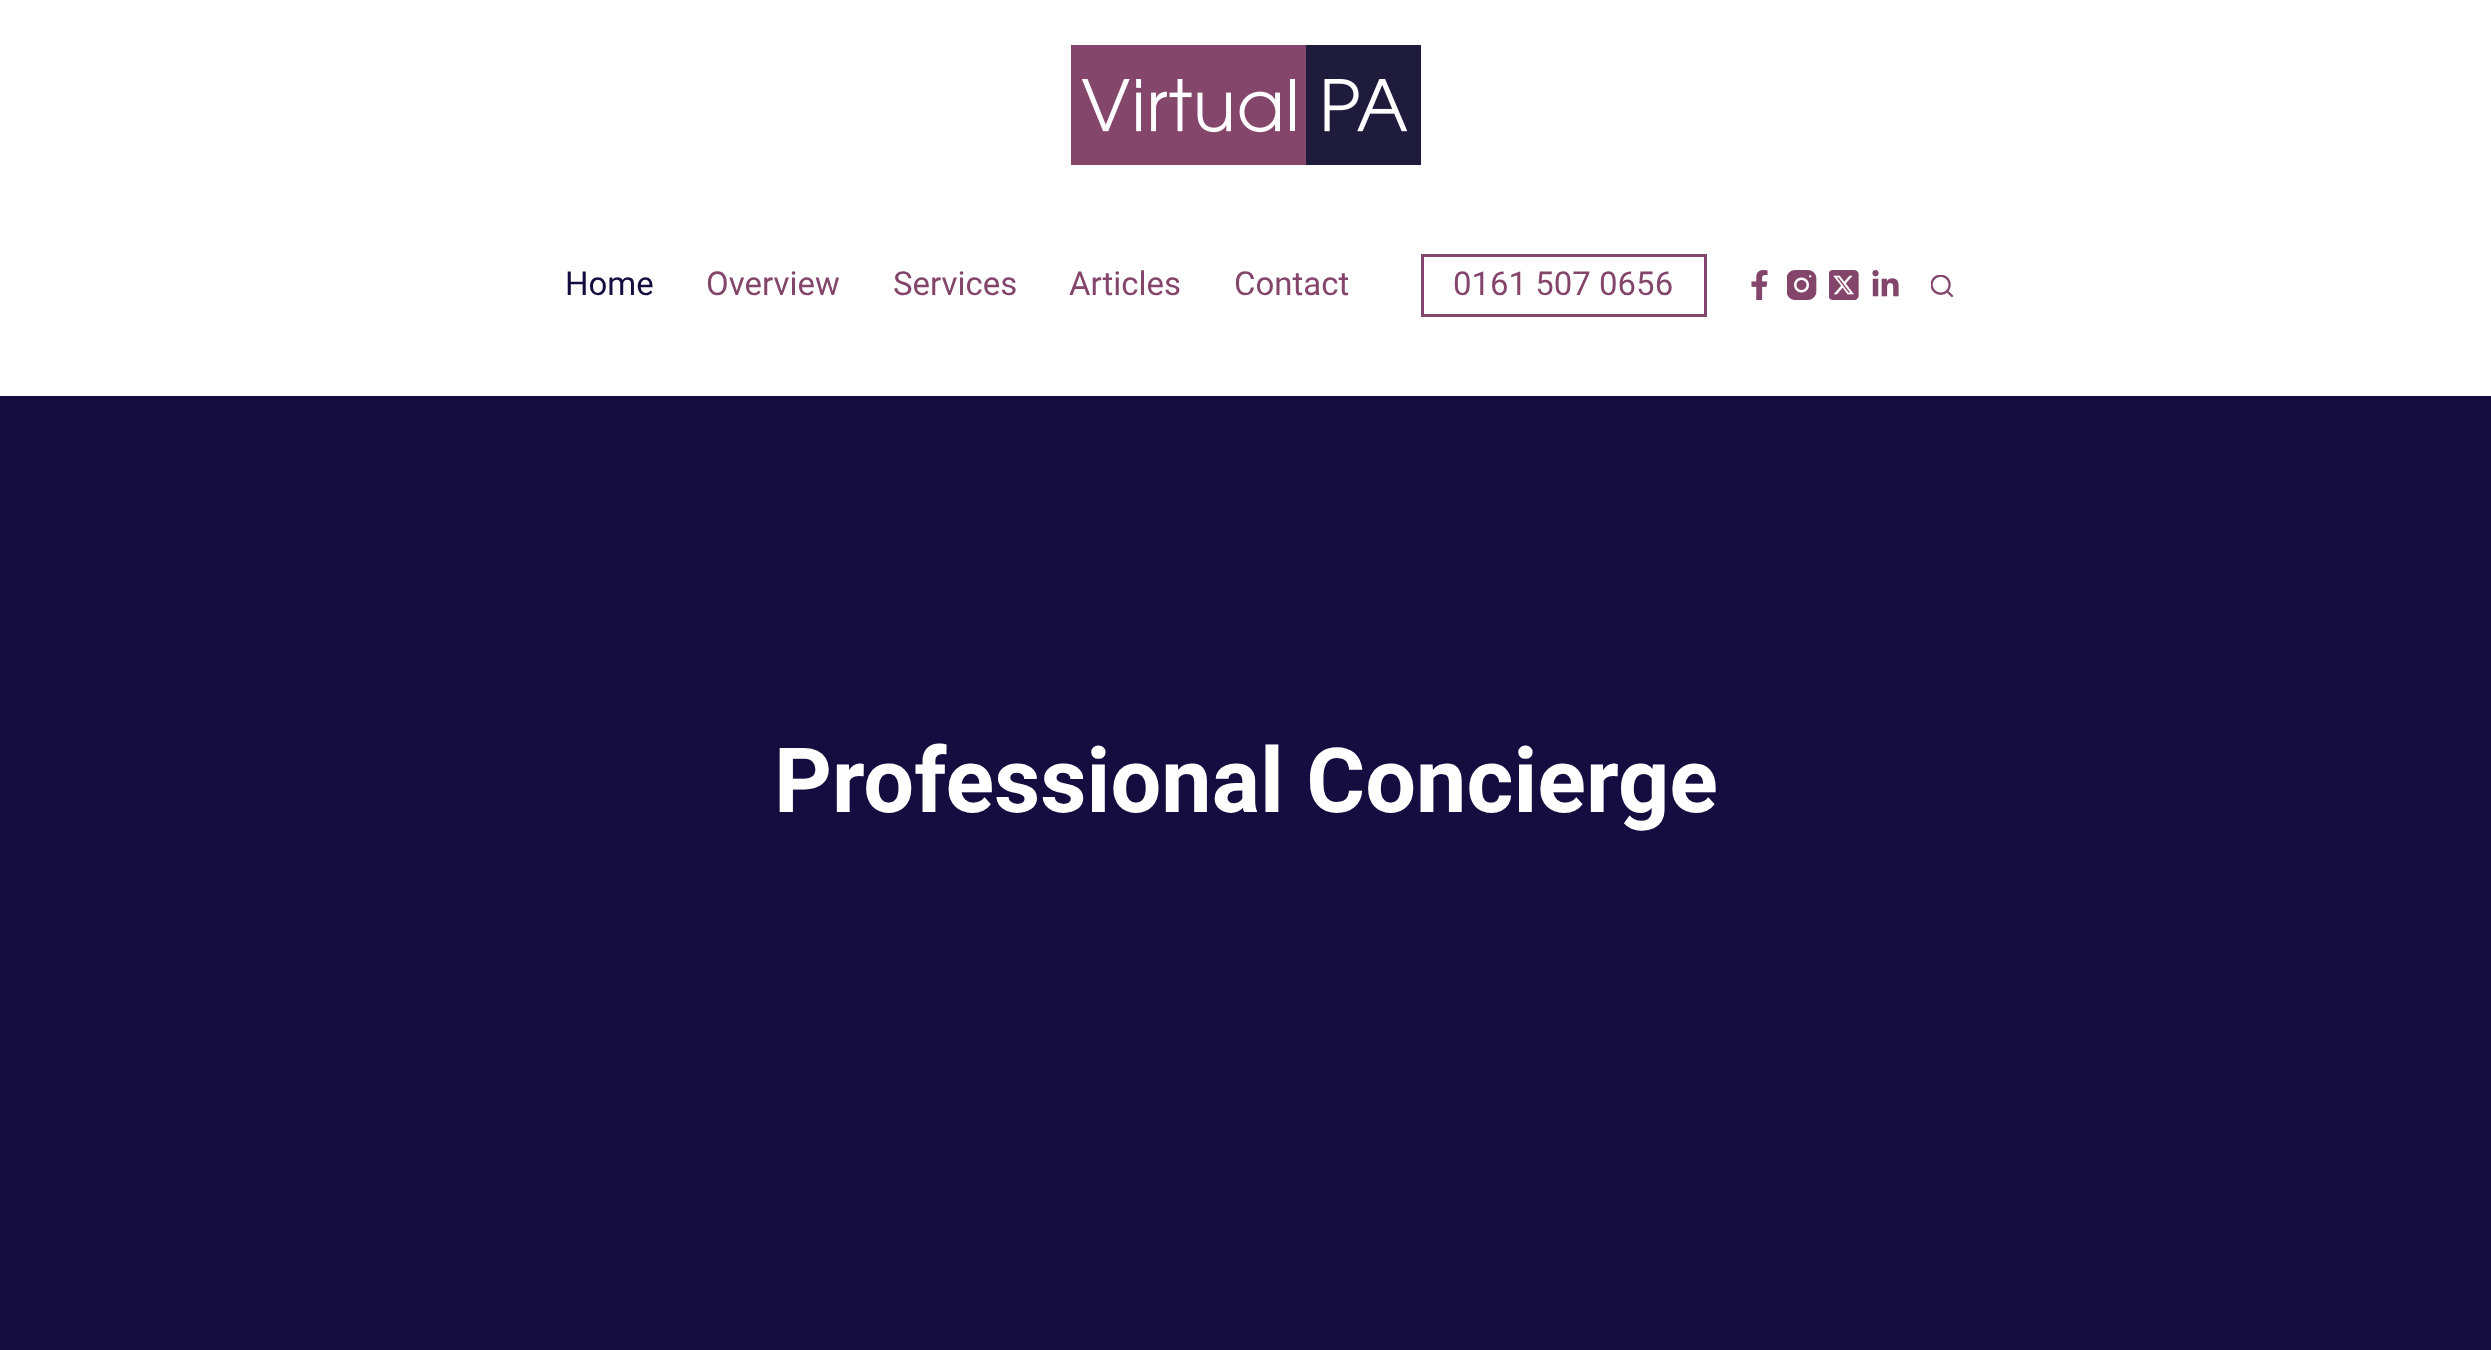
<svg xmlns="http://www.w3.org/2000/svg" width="2491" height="1350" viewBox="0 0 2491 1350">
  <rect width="100%" height="100%" fill="#fff"/>
  <image x="1071" y="45" width="350" height="120" href="img/1.png"/>
  <path d="M1422.5 255.5h283v60H1422.5z" fill="none" stroke="#84456a" stroke-width="3"/>
  <image x="1751" y="270" width="17" height="30" href="img/2.png"/>
  <image x="1787" y="270" width="30" height="30" href="img/3.png"/>
  <image x="1829" y="270" width="30" height="30" href="img/4.png"/>
  <image x="1872" y="270" width="27" height="27" href="img/5.png"/>
  <image x="1931" y="275" width="22" height="22" href="img/6.png"/>
  <path d="M0 396h2491v954H0z" fill="#150c40"/>
  <text x="565" y="295" font-family="Roboto" font-size="33" fill="#150c40">Home</text>
  <g font-family="Roboto" font-size="33" fill="#84456a">
    <text x="706" y="295">Overview</text>
    <text x="893" y="295">Services</text>
    <text x="1069" y="295">Articles</text>
    <text x="1234" y="295">Contact</text>
    <text x="1453" y="295">0161 507 0656</text>
  </g>
  <text x="774" y="812" font-family="Roboto" font-size="90" font-weight="bold" fill="#fff">Professional Concierge</text>
</svg>
